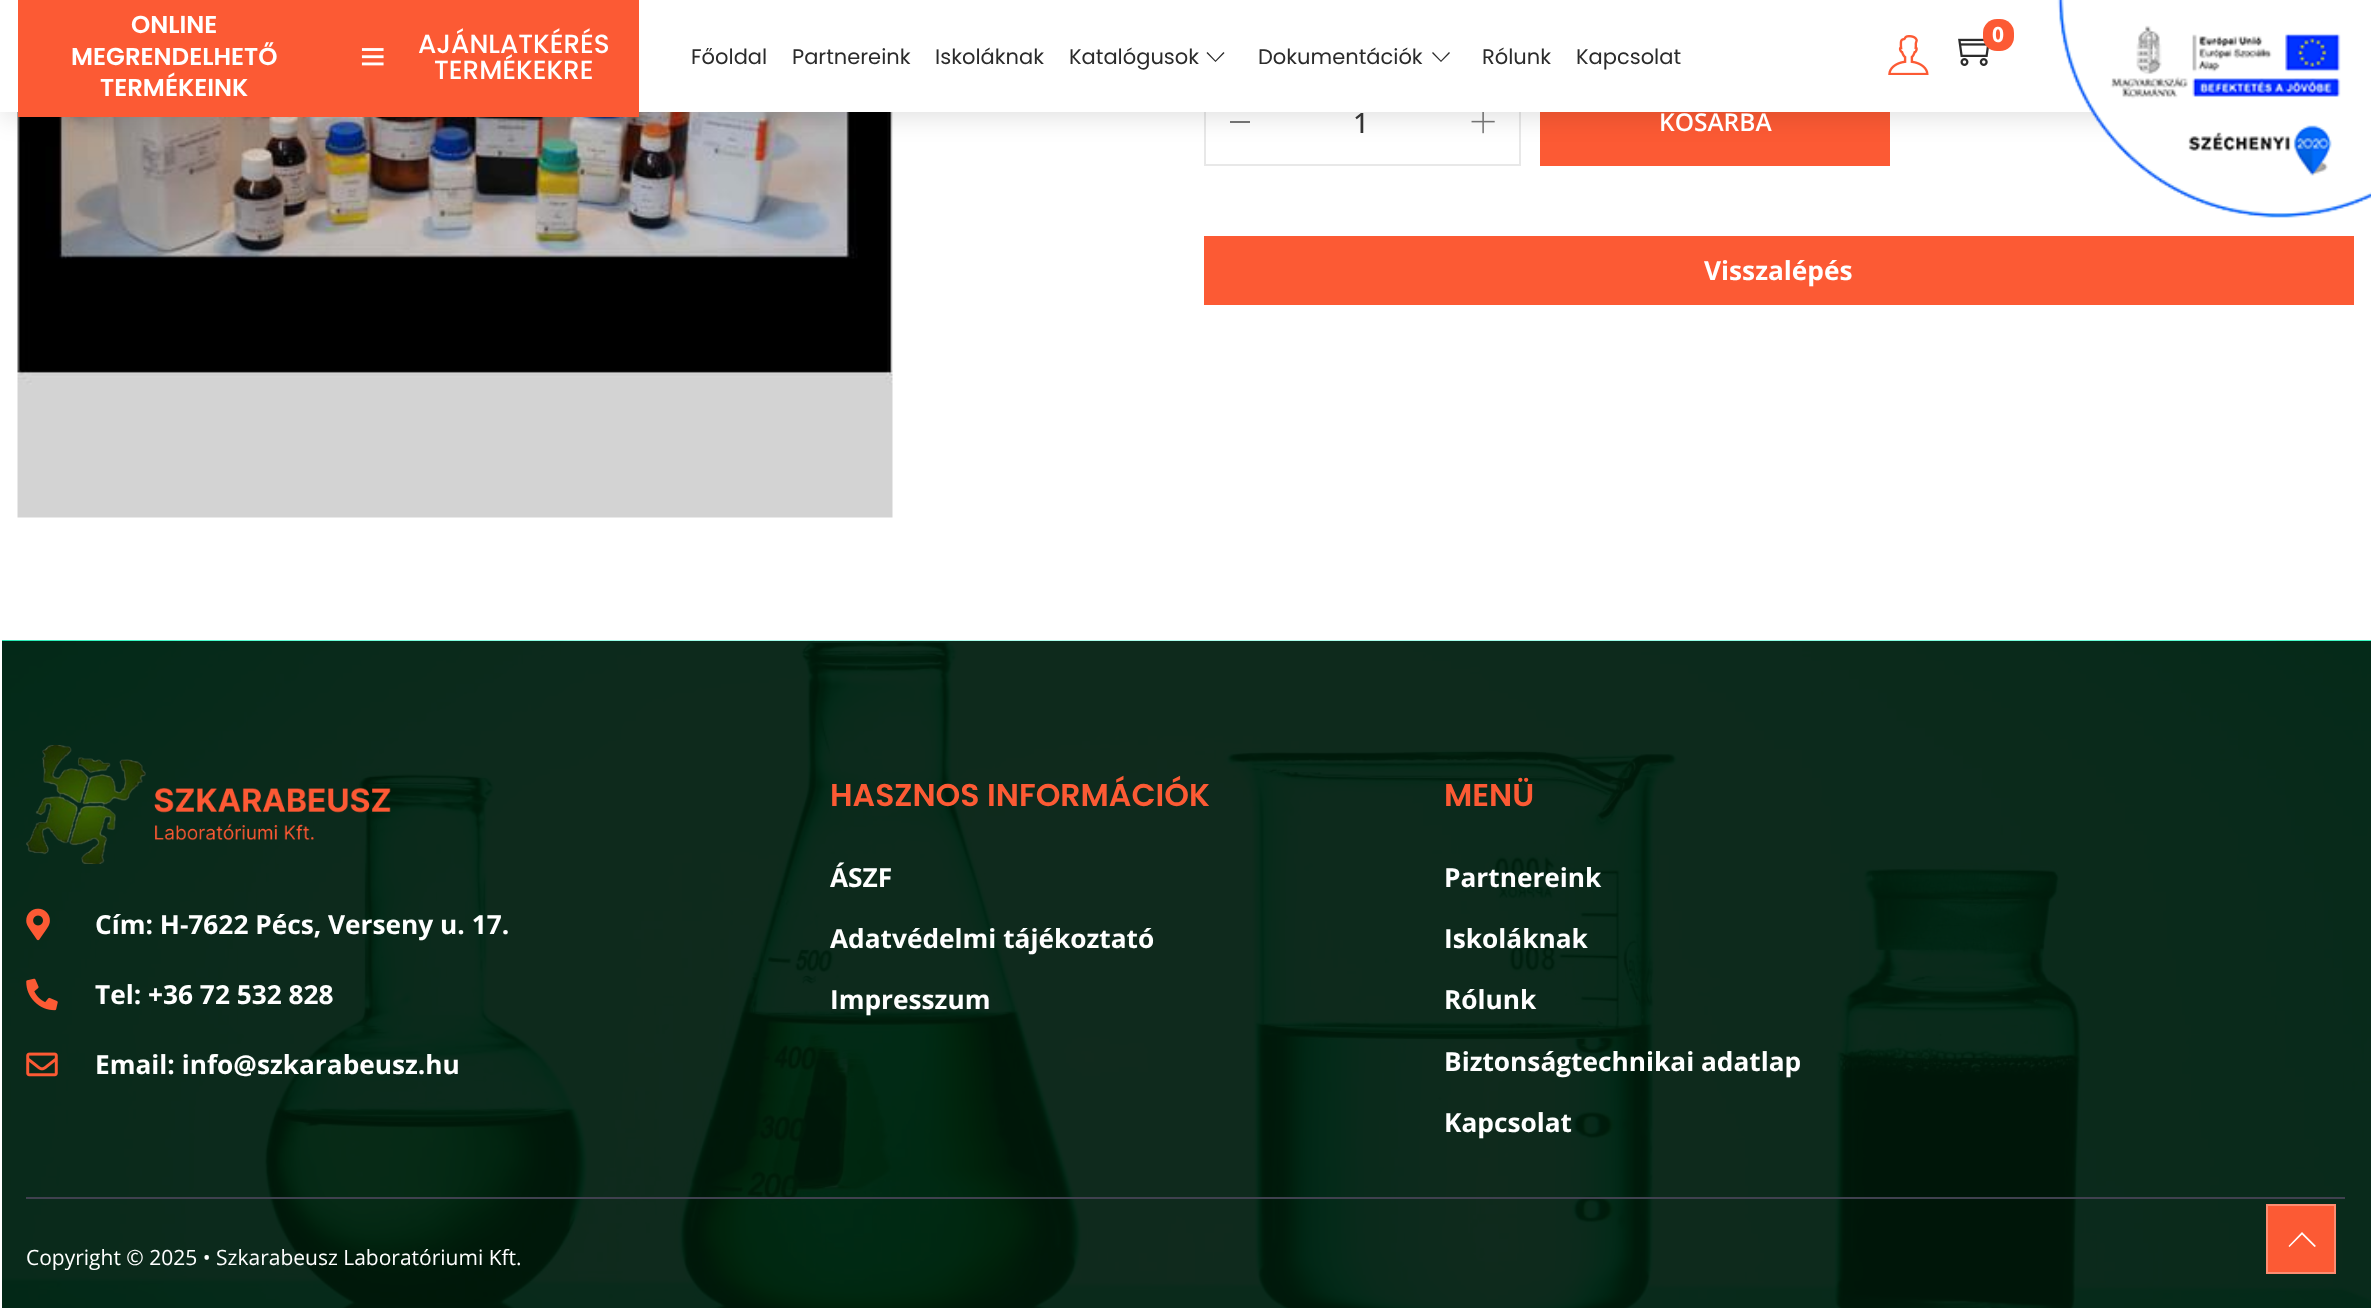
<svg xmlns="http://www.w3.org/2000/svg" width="2371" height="1308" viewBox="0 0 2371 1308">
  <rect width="100%" height="100%" fill="#fff"/>
  <image x="17" y="112" width="876" height="406" href="img/4.png"/>
  <path d="M1205 80h315v85H1205z" fill="none" stroke="#e8e8e8" stroke-width="2"/>
  <path d="M1230 121h20v2H1230z" fill="#787878"/>
  <image x="1471" y="112" width="24" height="22" href="img/5.png"/>
  <path d="M1540 112h350v54H1540z" fill="#fc5a34"/>
  <path d="M2 5h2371v112H2z" fill="#0000001f" filter="blur(13px)"/>
  <path d="M0 0h2371v112H0z" fill="#fff"/>
  <path d="M18 0h621v117H18z" fill="#fc5a34"/>
  <image x="361" y="48" width="23" height="18" href="img/1.png"/>
  <image x="1888" y="35" width="41" height="40" href="img/2.png"/>
  <image x="1958" y="38" width="31" height="28" href="img/3.png"/>
  <rect x="1983" y="19" width="31" height="32" rx="14" fill="#fc5a34"/>
  <path d="M1224.5 53L1215.5 62L1206.5 53L1207.5 52L1215.5 60.5L1223.5 52Z" fill="#2b2b2b"/>
  <path d="M1450 53L1441 62L1432 53L1433 52L1441 60.5L1449 52Z" fill="#2b2b2b"/>
  <path d="M1204 236h1150v69H1204z" fill="#fc5a34"/>
  <image x="2" y="640" width="2369" height="668" href="img/6.png"/>
  <image x="2057" y="0" width="314" height="218" href="img/7.png"/>
  <image x="26" y="745" width="365" height="119" href="img/8.png"/>
  <image x="26" y="908" width="24" height="33" href="img/9.png"/>
  <image x="26" y="978" width="32" height="33" href="img/10.png"/>
  <image x="26" y="1052" width="32" height="25" href="img/11.png"/>
  <path d="M26 1197h2319v2H26z" fill="#40414f"/>
  <path d="M2267 1205h68v68H2267z" fill="#fc5a34" stroke="#fd8c71" stroke-width="2"/>
  <path d="M2316 1246L2314.5 1247L2302 1234.5L2289.5 1247L2288.5 1246L2302 1232Z" fill="#fff"/>
  <g font-family="Poppins" font-size="24.5" font-weight="600" fill="#fff">
    <text x="131" y="33">ONLINE</text>
    <text x="71" y="65">MEGRENDELHETŐ</text>
    <text x="100" y="96">TERMÉKEINK</text>
  </g>
  <g font-family="Poppins" font-size="26.25" font-weight="500" fill="#fff">
    <text x="418" y="53">AJÁNLATKÉRÉS</text>
    <text x="434" y="79">TERMÉKEKRE</text>
  </g>
  <text x="1992" y="42" font-family="Open Sans" font-size="21" font-weight="bold" fill="#fff">0</text>
  <g font-family="Poppins" font-size="21" fill="#2b2b2b">
    <text x="691" y="64">Főoldal</text>
    <text x="792" y="64">Partnereink</text>
    <text x="935" y="64">Iskoláknak</text>
    <text x="1069" y="64">Katalógusok</text>
    <text x="1258" y="64">Dokumentációk</text>
    <text x="1482" y="64">Rólunk</text>
    <text x="1576" y="64">Kapcsolat</text>
  </g>
  <text x="1353" y="133" font-family="Open Sans" font-size="28" font-weight="500" fill="#333">1</text>
  <text x="1659" y="131" font-family="Open Sans" font-size="24.5" font-weight="600" fill="#fff">KOSÁRBA</text>
  <g font-family="Open Sans" font-size="26.25" font-weight="bold" fill="#fff">
    <text x="1704" y="280">Visszalépés</text>
    <text x="95" y="934">Cím: H-7622 Pécs, Verseny u. 17.</text>
    <text x="95" y="1004">Tel: +36 72 532 828</text>
    <text x="95" y="1074">Email: info@szkarabeusz.hu</text>
  </g>
  <text x="830" y="806" font-family="Poppins" font-size="31.5" font-weight="600" fill="#fc5a34">HASZNOS INFORMÁCIÓK</text>
  <g font-family="Open Sans" font-size="26.25" font-weight="bold" fill="#fff">
    <text x="830" y="887">ÁSZF</text>
    <text x="830" y="948">Adatvédelmi tájékoztató</text>
    <text x="830" y="1009">Impresszum</text>
  </g>
  <text x="1444" y="806" font-family="Poppins" font-size="31.5" font-weight="600" fill="#fc5a34">MENÜ</text>
  <g font-family="Open Sans" font-size="26.25" font-weight="bold" fill="#fff">
    <text x="1444" y="887">Partnereink</text>
    <text x="1444" y="948">Iskoláknak</text>
    <text x="1444" y="1009">Rólunk</text>
    <text x="1444" y="1071">Biztonságtechnikai adatlap</text>
    <text x="1444" y="1132">Kapcsolat</text>
  </g>
  <text x="26" y="1265" font-family="Open Sans" font-size="21" fill="#fff">Copyright © 2025 • Szkarabeusz Laboratóriumi Kft.</text>
</svg>
